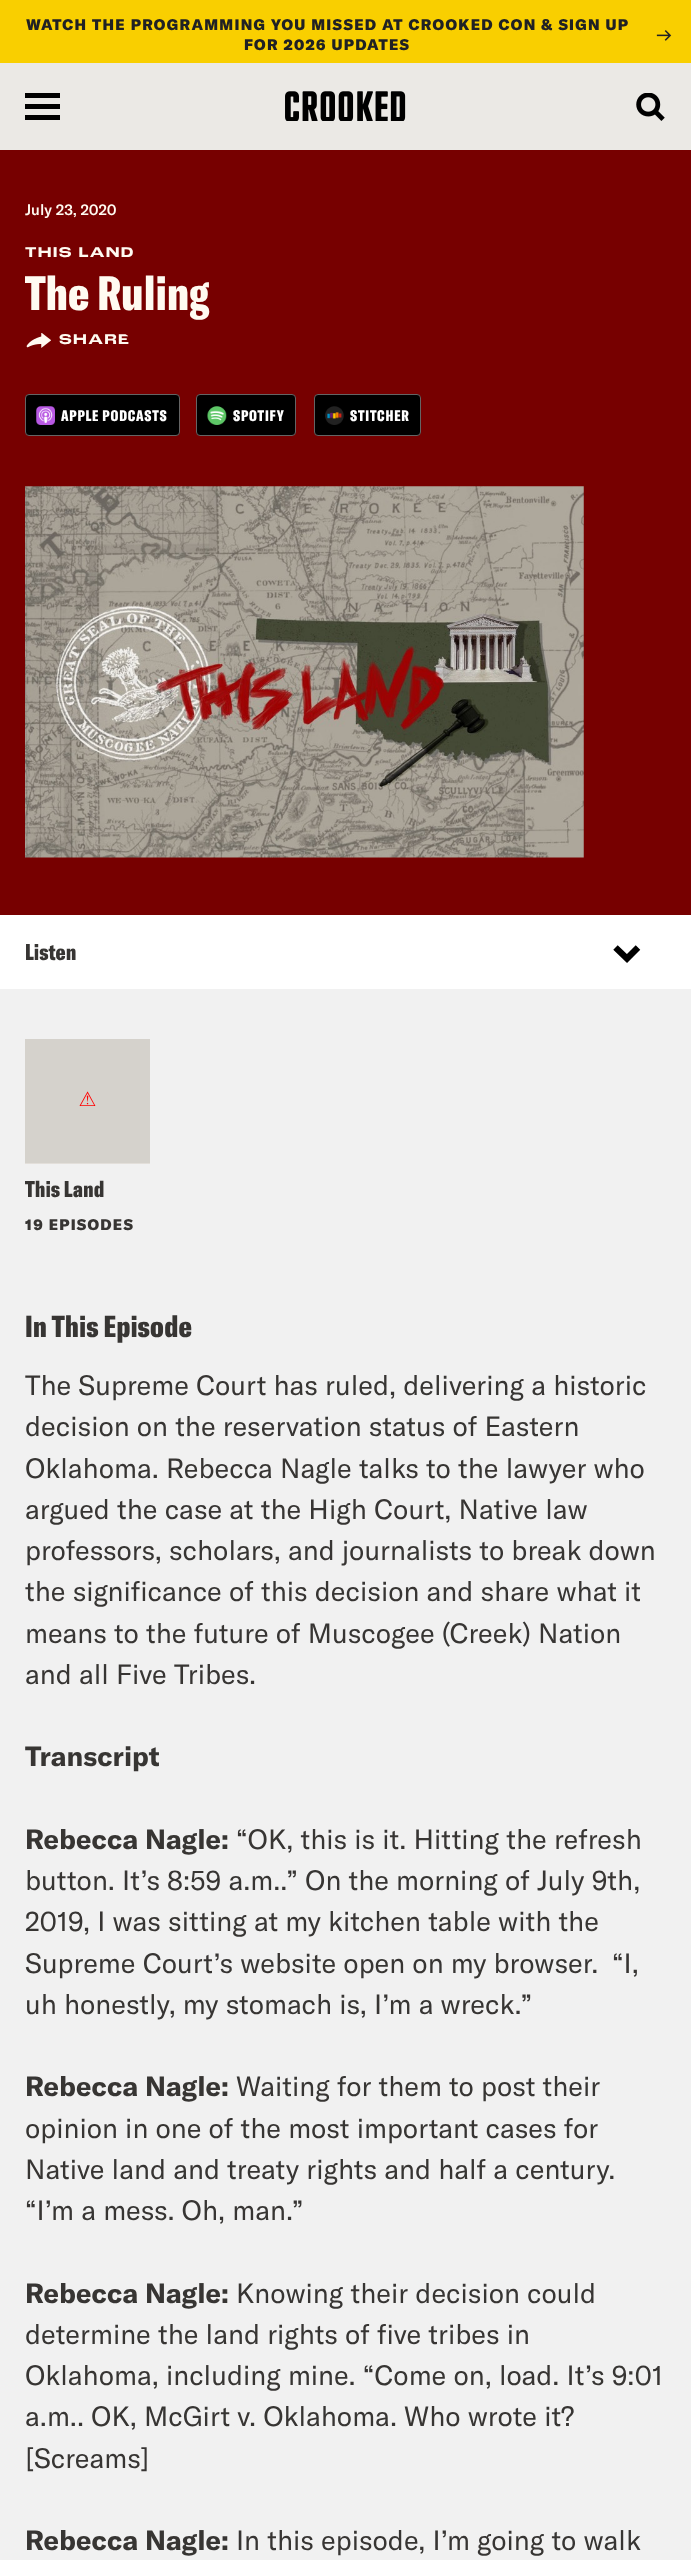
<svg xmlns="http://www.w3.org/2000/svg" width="691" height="2560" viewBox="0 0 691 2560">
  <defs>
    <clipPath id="clip1"><rect x="25" y="333" width="105" height="17" rx="8.5"/></clipPath>
  </defs>
  <rect width="100%" height="100%" fill="#f1f1f1"/>
  <path d="M0 0h691v63H0z" fill="#f9cf00"/>
  <image x="656" y="30" width="16" height="11" href="img/1.png"/>
  <path d="M0 63h691v87H0z" fill="#ebe9e5"/>
  <path d="M25 104h35v5H25z" fill="#000"/>
  <path d="M25 93h35v5H25z" fill="#000"/>
  <path d="M25 115h35v5H25z" fill="#000"/>
  <image x="285" y="91" width="121" height="30" href="img/2.png"/>
  <image x="636" y="93" width="29" height="28" href="img/3.png"/>
  <path d="M0 150h691v765H0z" fill="#700"/>
  <image x="26" y="333" width="25" height="15" href="img/4.png"/>
  <rect x="25.5" y="394.5" width="154" height="41" rx="3.5" fill="#000" stroke="#646464"/>
  <image x="36" y="406" width="19" height="19" href="img/5.png"/>
  <rect x="196.5" y="394.5" width="99" height="41" rx="3.5" fill="#000" stroke="#646464"/>
  <image x="207" y="406" width="20" height="19" href="img/6.png"/>
  <rect x="314.5" y="394.5" width="106" height="41" rx="3.5" fill="#000" stroke="#646464"/>
  <image x="325" y="406" width="19" height="19" href="img/7.png"/>
  <image x="25" y="486" width="559" height="372" href="img/8.png"/>
  <path d="M0 915h691v74H0z" fill="#fff"/>
  <path d="M638 947.5L627 958.5L615.5 947.5" fill="none" stroke="#000" stroke-width="6.4"/>
  <path d="M25 1039h125v125H25z" fill="#eeeae4"/>
  <image x="25" y="1039" width="125" height="125" href="img/9.png"/>
  <g font-family="'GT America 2'" font-size="15" font-weight="900" letter-spacing="1.25" fill="#202124">
    <text x="26" y="30">WATCH THE PROGRAMMING YOU MISSED AT CROOKED CON &amp; SIGN UP</text>
    <text x="244" y="50">FOR 2026 UPDATES</text>
  </g>
  <text x="25" y="215" font-family="GT America" font-size="15" font-weight="500" fill="#fffaf1">July 23, 2020</text>
  <text x="25" y="257" font-family="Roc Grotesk" font-size="15" font-weight="bold" letter-spacing="1.25" fill="#fffaf1">THIS LAND</text>
  <text x="25" y="310" font-family="GT America" font-size="47.5" font-weight="900" fill="#fffaf1">The Ruling</text>
  <g clip-path="url(#clip1)">
    <text x="59" y="344" font-family="Roc Grotesk" font-size="15" font-weight="bold" letter-spacing="1.25" fill="#fffaf1">SHARE</text>
  </g>
  <g font-family="GT America" font-size="15" font-weight="900" letter-spacing="0.8" fill="#fff">
    <text x="61" y="421">APPLE PODCASTS</text>
    <text x="233" y="421">SPOTIFY</text>
    <text x="350" y="421">STITCHER</text>
  </g>
  <g font-family="GT America" font-size="22.5" font-weight="900" fill="#373533">
    <text x="25" y="960">Listen</text>
    <text x="25" y="1197">This Land</text>
  </g>
  <text x="25" y="1230" font-family="'GT America 2'" font-size="15" font-weight="900" letter-spacing="1.25" fill="#373533">19 EPISODES</text>
  <text x="25" y="1337" font-family="GT America" font-size="30" font-weight="900" fill="#373533">In This Episode</text>
  <g font-family="GT America" font-size="27.5" fill="#373533">
    <text x="25" y="1395">The Supreme Court has ruled, delivering a historic</text>
    <text x="25" y="1436">decision on the reservation status of Eastern</text>
    <text x="25" y="1478">Oklahoma. Rebecca Nagle talks to the lawyer who</text>
    <text x="25" y="1519">argued the case at the High Court, Native law</text>
    <text x="25" y="1560">professors, scholars, and journalists to break down</text>
    <text x="25" y="1601">the significance of this decision and share what it</text>
    <text x="25" y="1643">means to the future of Muscogee (Creek) Nation</text>
    <text x="25" y="1684">and all Five Tribes.</text>
  </g>
  <g font-family="GT America" font-size="27.5" font-weight="bold" fill="#373533">
    <text x="25" y="1766">Transcript</text>
    <text x="25" y="1849">Rebecca Nagle:</text>
  </g>
  <g font-family="GT America" font-size="27.5" fill="#373533">
    <text x="236" y="1849">“OK, this is it. Hitting the refresh</text>
    <text x="25" y="1890">button. It’s 8:59 a.m..” On the morning of July 9th,</text>
    <text x="25" y="1931">2019, I was sitting at my kitchen table with the</text>
    <text x="25" y="1973">Supreme Court’s website open on my browser.</text>
    <text x="612" y="1973">“I,</text>
    <text x="25" y="2014">uh honestly, my stomach is, I’m a wreck.”</text>
  </g>
  <text x="25" y="2096" font-family="GT America" font-size="27.5" font-weight="bold" fill="#373533">Rebecca Nagle:</text>
  <g font-family="GT America" font-size="27.5" fill="#373533">
    <text x="236" y="2096">Waiting for them to post their</text>
    <text x="25" y="2138">opinion in one of the most important cases for</text>
    <text x="25" y="2179">Native land and treaty rights and half a century.</text>
    <text x="25" y="2220">“I’m a mess. Oh, man.”</text>
  </g>
  <text x="25" y="2303" font-family="GT America" font-size="27.5" font-weight="bold" fill="#373533">Rebecca Nagle:</text>
  <g font-family="GT America" font-size="27.5" fill="#373533">
    <text x="236" y="2303">Knowing their decision could</text>
    <text x="25" y="2344">determine the land rights of five tribes in</text>
    <text x="25" y="2385">Oklahoma, including mine. “Come on, load. It’s 9:01</text>
    <text x="25" y="2426">a.m.. OK, McGirt v. Oklahoma. Who wrote it?</text>
    <text x="25" y="2468">[Screams]</text>
  </g>
  <text x="25" y="2550" font-family="GT America" font-size="27.5" font-weight="bold" fill="#373533">Rebecca Nagle:</text>
  <text x="236" y="2550" font-family="GT America" font-size="27.5" fill="#373533">In this episode, I’m going to walk</text>
</svg>
